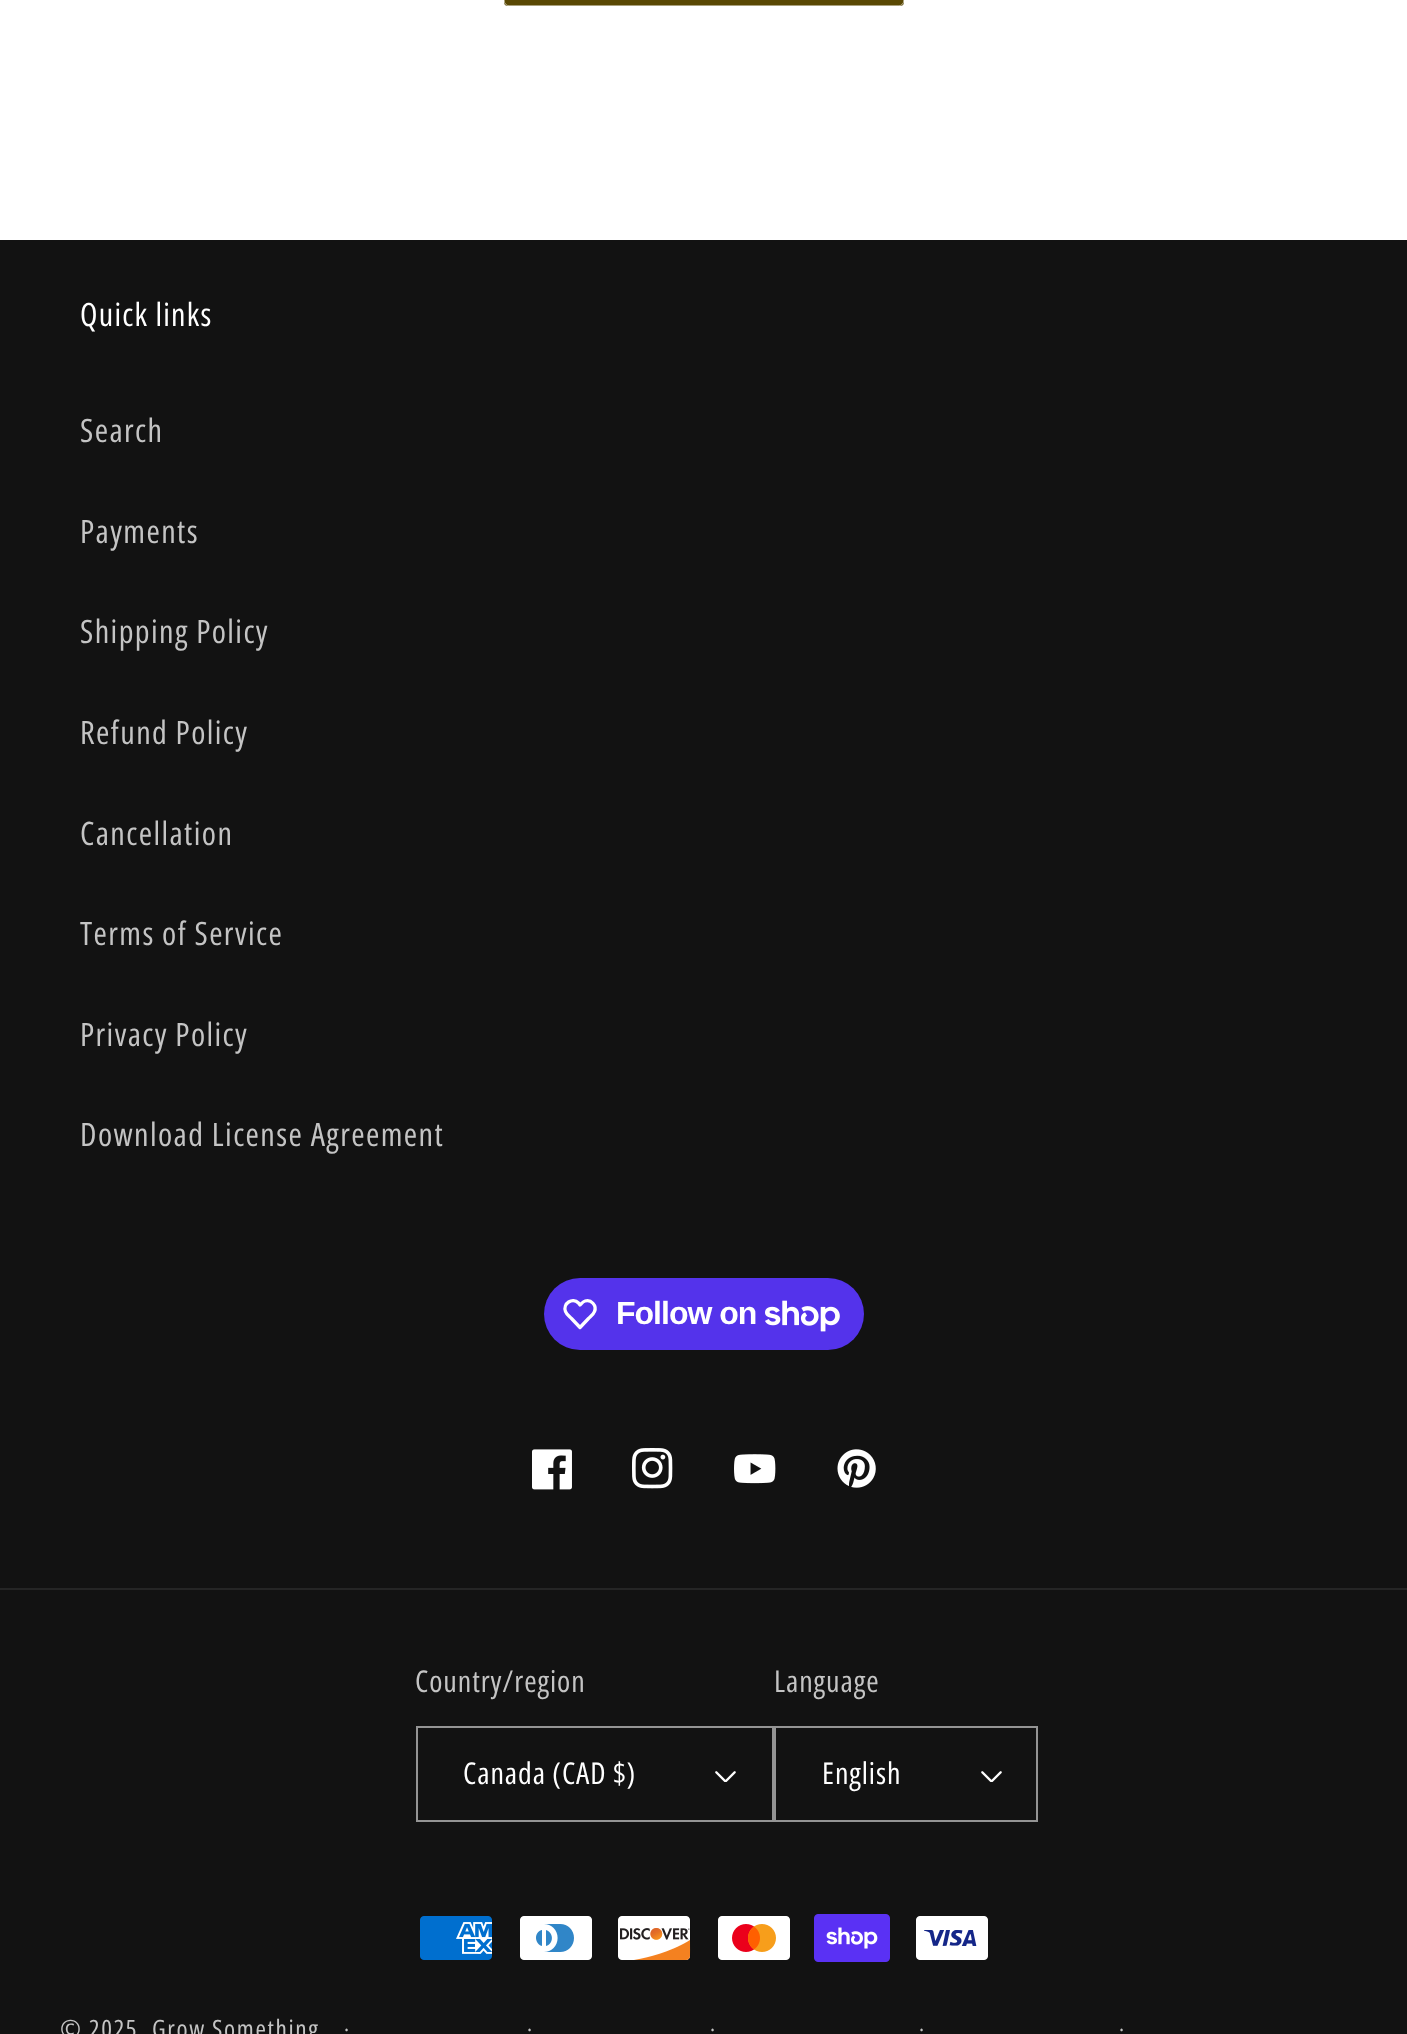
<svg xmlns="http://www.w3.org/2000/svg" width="1407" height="2034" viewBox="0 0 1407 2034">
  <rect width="100%" height="100%" fill="#fff"/>
  <rect x="504" y="-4" width="400" height="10" rx="4" fill="#594803"/>
  <rect x="504.3" y="-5.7" width="399.4" height="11.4" rx="4.7" fill="none" stroke="#fff" stroke-width="0.6"/>
  <path d="M0 240h1407v1794H0z" fill="#121212"/>
  <rect x="544" y="1278" width="320" height="72" rx="36" fill="#5433eb"/>
  <path d="M578.5 1303L580 1305C581.5 1303.5 583 1301.5 585 1301C591 1299 597 1305.5 594.5 1311.5C593.5 1314.5 590.5 1316.5 588.5 1318.5L580 1327.5L571.5 1318.5C569.5 1316.5 566.5 1314.5 565.5 1311.5C562.5 1303.5 572.5 1297 578.5 1303Z" fill="none" stroke="#fff" stroke-width="3.3" stroke-linejoin="round"/>
  <image x="765" y="1300" width="75" height="32" href="img/1.png"/>
  <image x="532" y="1449" width="40" height="41" href="img/2.png"/>
  <image x="632" y="1448" width="41" height="41" href="img/3.png"/>
  <image x="734" y="1454" width="42" height="30" href="img/4.png"/>
  <image x="837" y="1449" width="39" height="39" href="img/5.png"/>
  <path d="M0 1588h1407v2H0z" fill="#252525"/>
  <image x="715" y="1771" width="21" height="11" href="img/6.png"/>
  <path d="M417 1727h356v94H417z" fill="none" stroke="#949494" stroke-width="2"/>
  <image x="981" y="1771" width="21" height="11" href="img/6.png"/>
  <path d="M775 1727h262v94H775z" fill="none" stroke="#949494" stroke-width="2"/>
  <image x="420" y="1916" width="72" height="44" href="img/7.png"/>
  <image x="520" y="1916" width="72" height="44" href="img/8.png"/>
  <image x="618" y="1916" width="73" height="44" href="img/9.png"/>
  <image x="718" y="1916" width="72" height="44" href="img/10.png"/>
  <image x="814" y="1914" width="76" height="48" href="img/11.png"/>
  <image x="916" y="1916" width="72" height="44" href="img/12.png"/>
  <text x="80" y="326" font-family="Open Sans Condensed" font-size="32" letter-spacing="1.25" fill="#fff">Quick links</text>
  <g font-family="Open Sans Condensed" font-size="32.25" letter-spacing="1.4" fill="#c4c4c4">
    <text x="80" y="442">Search</text>
    <text x="80" y="543">Payments</text>
    <text x="80" y="643">Shipping Policy</text>
    <text x="80" y="744">Refund Policy</text>
    <text x="80" y="845">Cancellation</text>
    <text x="80" y="945">Terms of Service</text>
    <text x="80" y="1046">Privacy Policy</text>
    <text x="80" y="1146">Download License Agreement</text>
  </g>
  <text x="616" y="1324" font-family="Liberation Sans" font-size="32" font-weight="bold" letter-spacing="-1" fill="#fff">Follow on</text>
  <text x="415" y="1692" font-family="Open Sans Condensed" font-size="30" letter-spacing="0.9" fill="#c4c4c4">Country/region</text>
  <text x="463" y="1784" font-family="Open Sans Condensed" font-size="30" letter-spacing="0.9" fill="#fff">Canada (CAD $)</text>
  <text x="774" y="1692" font-family="Open Sans Condensed" font-size="30" letter-spacing="0.9" fill="#c4c4c4">Language</text>
  <text x="822" y="1784" font-family="Open Sans Condensed" font-size="30" letter-spacing="0.9" fill="#fff">English</text>
  <g font-family="Open Sans Condensed" font-size="25.25" letter-spacing="1.6" fill="#c4c4c4">
    <text x="60" y="2038">© 2025</text>
    <text x="152" y="2038">Grow Something</text>
  </g>
  <g font-family="Open Sans Condensed" font-size="23" letter-spacing="1.6" fill="#c4c4c4">
    <text x="344" y="2038">·</text>
    <text x="527" y="2038">·</text>
    <text x="710" y="2038">·</text>
    <text x="919" y="2038">·</text>
    <text x="1119" y="2038">·</text>
  </g>
</svg>
